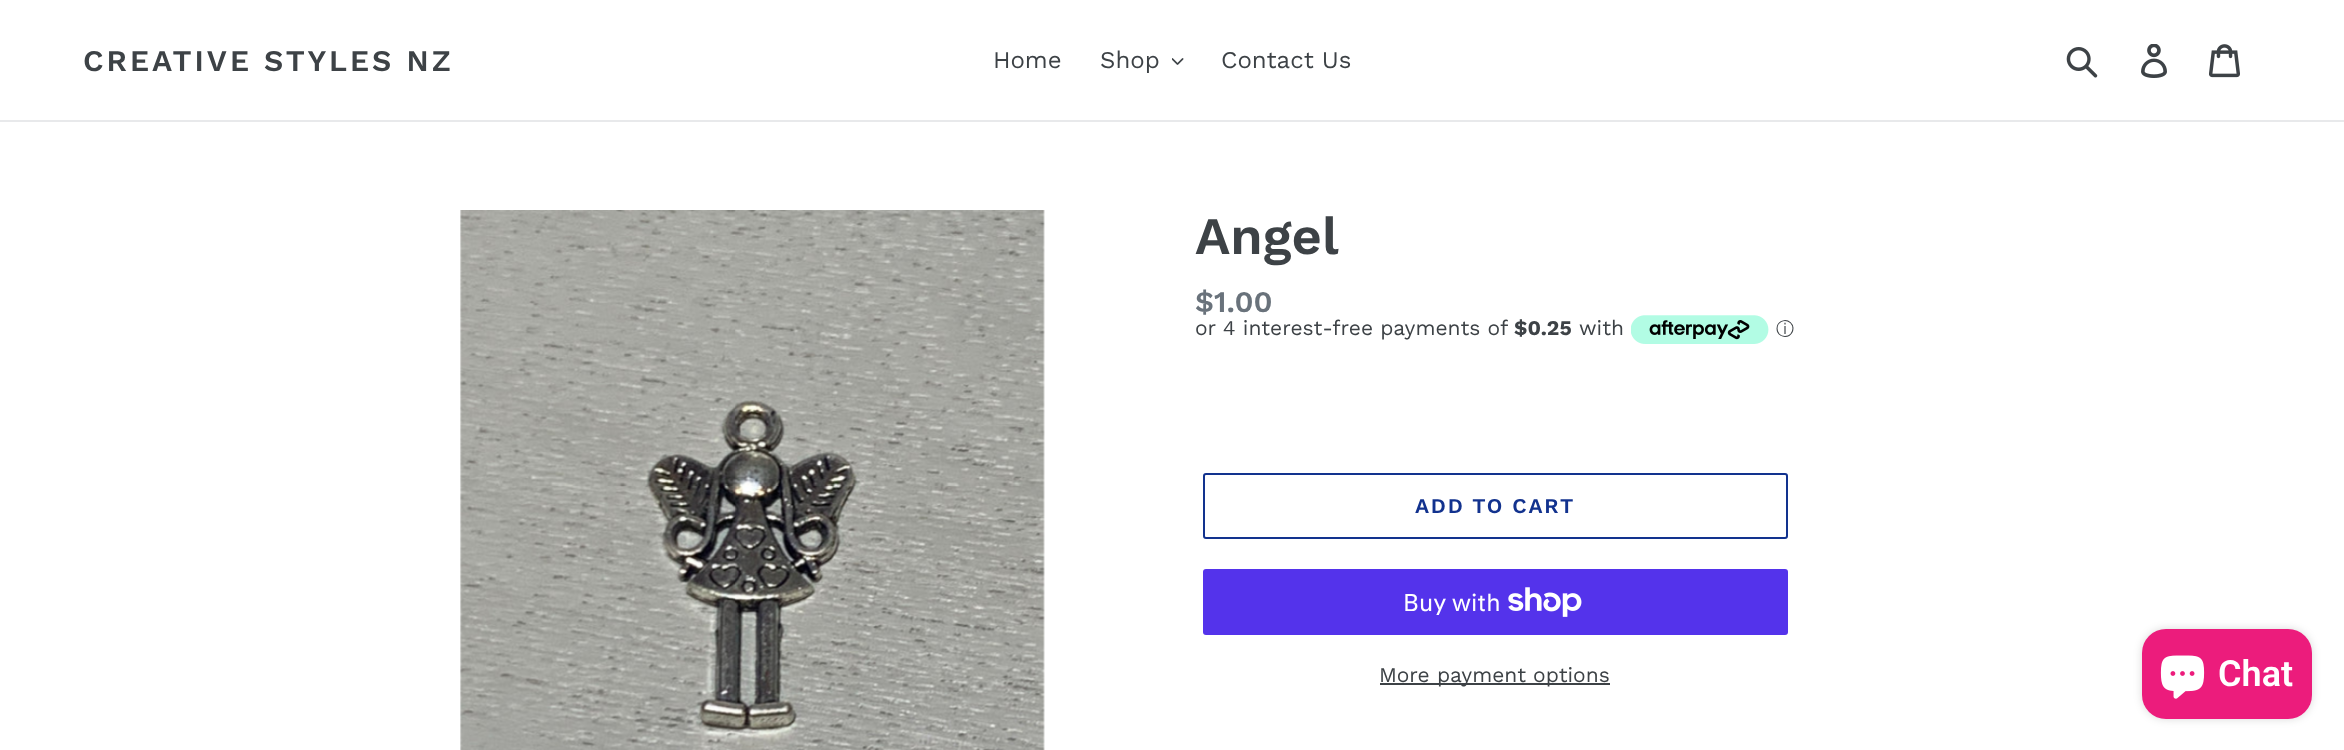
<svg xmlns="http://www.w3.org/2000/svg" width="2344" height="750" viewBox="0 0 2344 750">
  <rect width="100%" height="100%" fill="#fff"/>
  <path d="M0 120h2344v2H0z" fill="#e8e9eb"/>
  <image x="1172" y="58" width="12" height="7" href="img/1.png"/>
  <image x="2066" y="47" width="32" height="31" href="img/2.png"/>
  <image x="2141" y="44" width="26" height="34" href="img/3.png"/>
  <image x="2209" y="44" width="31" height="34" href="img/4.png"/>
  <image x="460" y="210" width="585" height="540" href="img/5.png"/>
  <image x="1631" y="315" width="138" height="29" href="img/6.png"/>
  <rect x="1204" y="474" width="583" height="64" rx="2" fill="none" stroke="#12328e" stroke-width="2"/>
  <rect x="1203" y="569" width="585" height="66" rx="3" fill="#5433eb"/>
  <image x="1508" y="587" width="74" height="30" href="img/7.png"/>
  <path d="M1380 683h230v2H1380z" fill="#3d4246"/>
  <rect x="2142" y="629" width="170" height="90" rx="24" fill="#00000026" filter="blur(4px)"/>
  <rect x="2142" y="629" width="170" height="90" rx="24" fill="#ec1c7c"/>
  <image x="2160" y="655" width="45" height="44" href="img/8.png"/>
  <text x="83" y="71" font-family="Work Sans" font-size="30" font-weight="600" letter-spacing="3" fill="#3d4246">CREATIVE STYLES NZ</text>
  <g font-family="Work Sans" font-size="24" fill="#3d4246">
    <text x="993" y="68">Home</text>
    <text x="1100" y="68">Shop</text>
    <text x="1221" y="68">Contact Us</text>
  </g>
  <text x="1195" y="254" font-family="Work Sans" font-size="52.5" font-weight="600" fill="#3d4246">Angel</text>
  <text x="1195" y="312" font-family="Work Sans" font-size="30" font-weight="600" fill="#69727b">$1.00</text>
  <text x="1195" y="335" font-family="Work Sans" font-size="21" fill="#3d4246">or 4 interest-free payments of</text>
  <text x="1514" y="335" font-family="Work Sans" font-size="21" font-weight="bold" fill="#3d4246">$0.25</text>
  <text x="1579" y="335" font-family="Work Sans" font-size="21" fill="#3d4246">with</text>
  <text x="1776" y="335" font-family="WenQuanYi Zen Hei" font-size="18" font-weight="500" fill="#3d4246">ⓘ</text>
  <text x="1415" y="513" font-family="Work Sans" font-size="21" font-weight="600" letter-spacing="1.75" fill="#12328e">ADD TO CART</text>
  <text x="1403" y="611" font-family="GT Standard" font-size="24" fill="#fff">Buy with</text>
  <text x="1379" y="682" font-family="Work Sans" font-size="21" fill="#3d4246">More payment options</text>
  <text x="2218" y="686" font-family="Roboto" font-size="36" font-weight="600" fill="#fff">Chat</text>
</svg>
